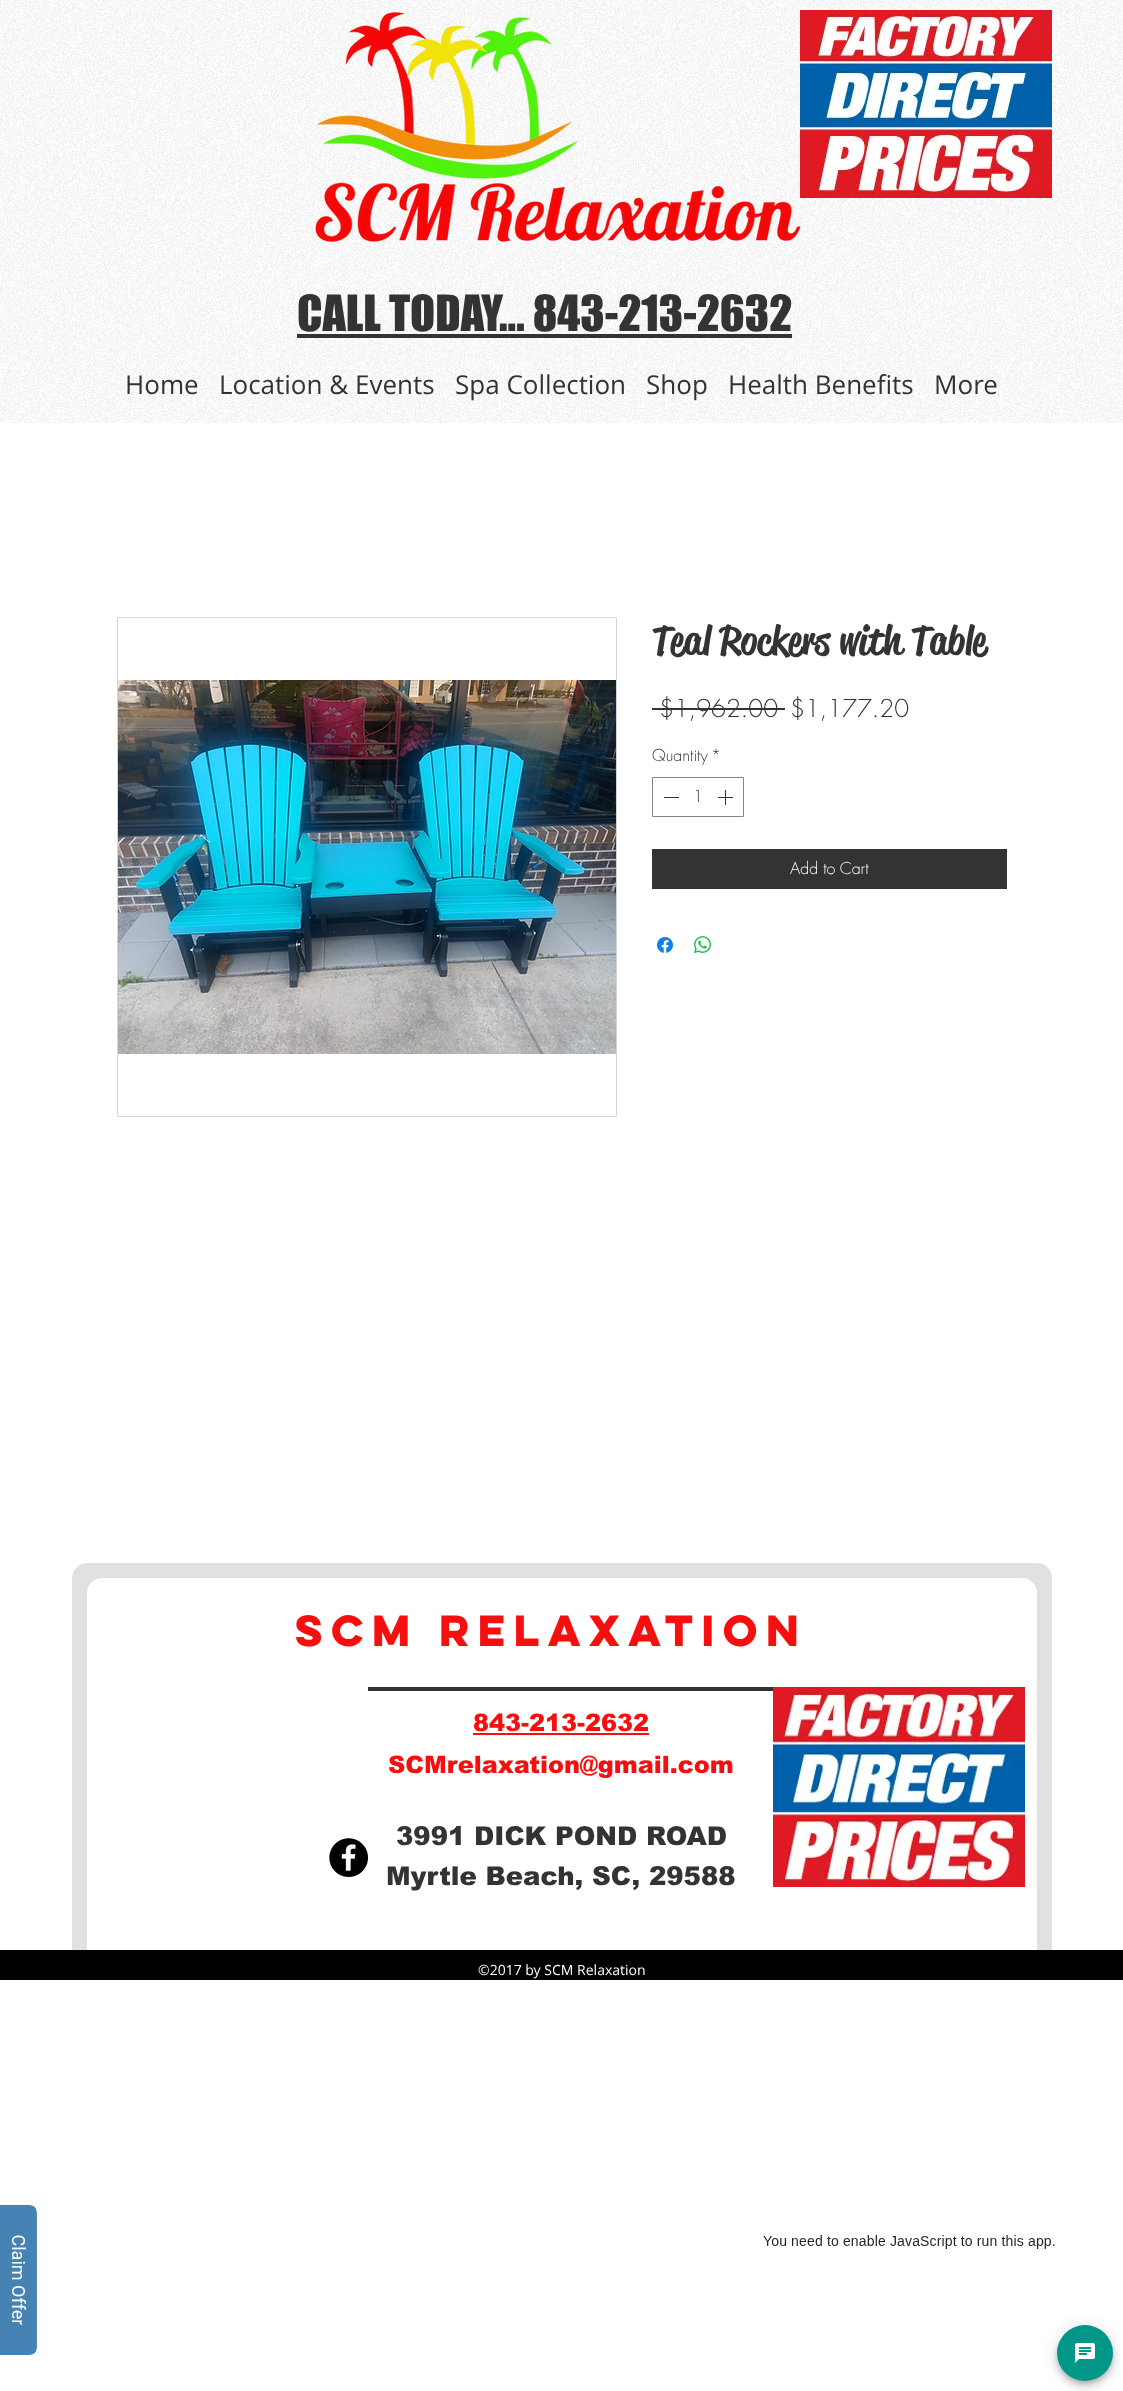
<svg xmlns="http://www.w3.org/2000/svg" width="1123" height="2391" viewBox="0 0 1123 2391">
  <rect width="100%" height="100%" fill="#fff"/>
  <image x="0" y="0" width="1123" height="423" href="img/1.png"/>
  <image x="315" y="12" width="486" height="230" href="img/2.png"/>
  <image x="800" y="10" width="252" height="188" href="img/3.png"/>
  <path d="M297 334h495v4H297z" fill="#333"/>
  <path d="M117.5 617.5h499v499H117.5z" fill="none" stroke="#d6d6d6"/>
  <image x="118" y="680" width="498" height="374" href="img/4.png"/>
  <path d="M652 708h133v2H652z" fill="#333"/>
  <path d="M652.5 777.5h91v39H652.5z" fill="none" stroke="#858585"/>
  <path d="M664 797h15v1H664z" fill="#333"/>
  <image x="718" y="790" width="15" height="15" href="img/5.png"/>
  <path d="M652 849h355v40H652z" fill="#333"/>
  <image x="657" y="937" width="16" height="16" href="img/6.png"/>
  <image x="694" y="936" width="17" height="17" href="img/7.png"/>
  <rect x="72" y="1563" width="980" height="417" rx="15" fill="#e1e1e1"/>
  <rect x="87" y="1578" width="950" height="387" rx="15" fill="#fff"/>
  <path d="M368 1687h405v4H368z" fill="#333"/>
  <image x="773" y="1687" width="252" height="200" href="img/8.png"/>
  <path d="M473 1733h176v2H473z" fill="#f70f0f"/>
  <image x="329" y="1838" width="39" height="39" href="img/9.png"/>
  <path d="M0 1950h1123v30H0z" fill="#000"/>
  <image x="0" y="2204" width="37" height="151" href="img/10.png"/>
  <image x="763" y="2235" width="357" height="156" href="img/11.png"/>
  <text x="297" y="331" font-family="'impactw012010'" font-size="46" fill="#333">CALL TODAY... 843-213-2632</text>
  <g font-family="Open Sans" font-size="26" fill="#333">
    <text x="125" y="394">Home</text>
    <text x="219" y="394">Location &amp; Events</text>
    <text x="455" y="394">Spa Collection</text>
    <text x="646" y="394">Shop</text>
    <text x="728" y="394">Health Benefits</text>
    <text x="934" y="394">More</text>
  </g>
  <text x="652" y="654" font-family="'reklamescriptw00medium'" font-size="40" font-weight="500" fill="#333">Teal Rockers with Table</text>
  <g font-family="futura" font-size="24" font-weight="300" fill="#333">
    <text x="659" y="717">$1,962.00</text>
    <text x="790" y="717">$1,177.20</text>
  </g>
  <g font-family="futura" font-size="16" font-weight="300" fill="#333">
    <text x="652" y="761">Quantity</text>
    <text x="711" y="761">*</text>
    <text x="693" y="802">1</text>
  </g>
  <text x="790" y="874" font-family="futura" font-size="16" font-weight="300" fill="#fff">Add to Cart</text>
  <text x="295" y="1646" font-family="'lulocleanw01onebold'" font-size="39" font-weight="bold" fill="#f70f0f">SCM Relaxation</text>
  <g font-family="arial" font-size="24" font-weight="900" fill="#f70f0f">
    <text x="473" y="1731">843-213-2632</text>
    <text x="388" y="1773">SCMrelaxation@gmail.com</text>
  </g>
  <g font-family="arial" font-size="26" font-weight="900" fill="#333">
    <text x="396" y="1845">3991 DICK POND ROAD</text>
    <text x="386" y="1885">Myrtle Beach, SC, 29588</text>
  </g>
  <text x="478" y="1975" font-family="Open Sans" font-size="14" fill="#fff">©2017 by SCM Relaxation</text>
</svg>
